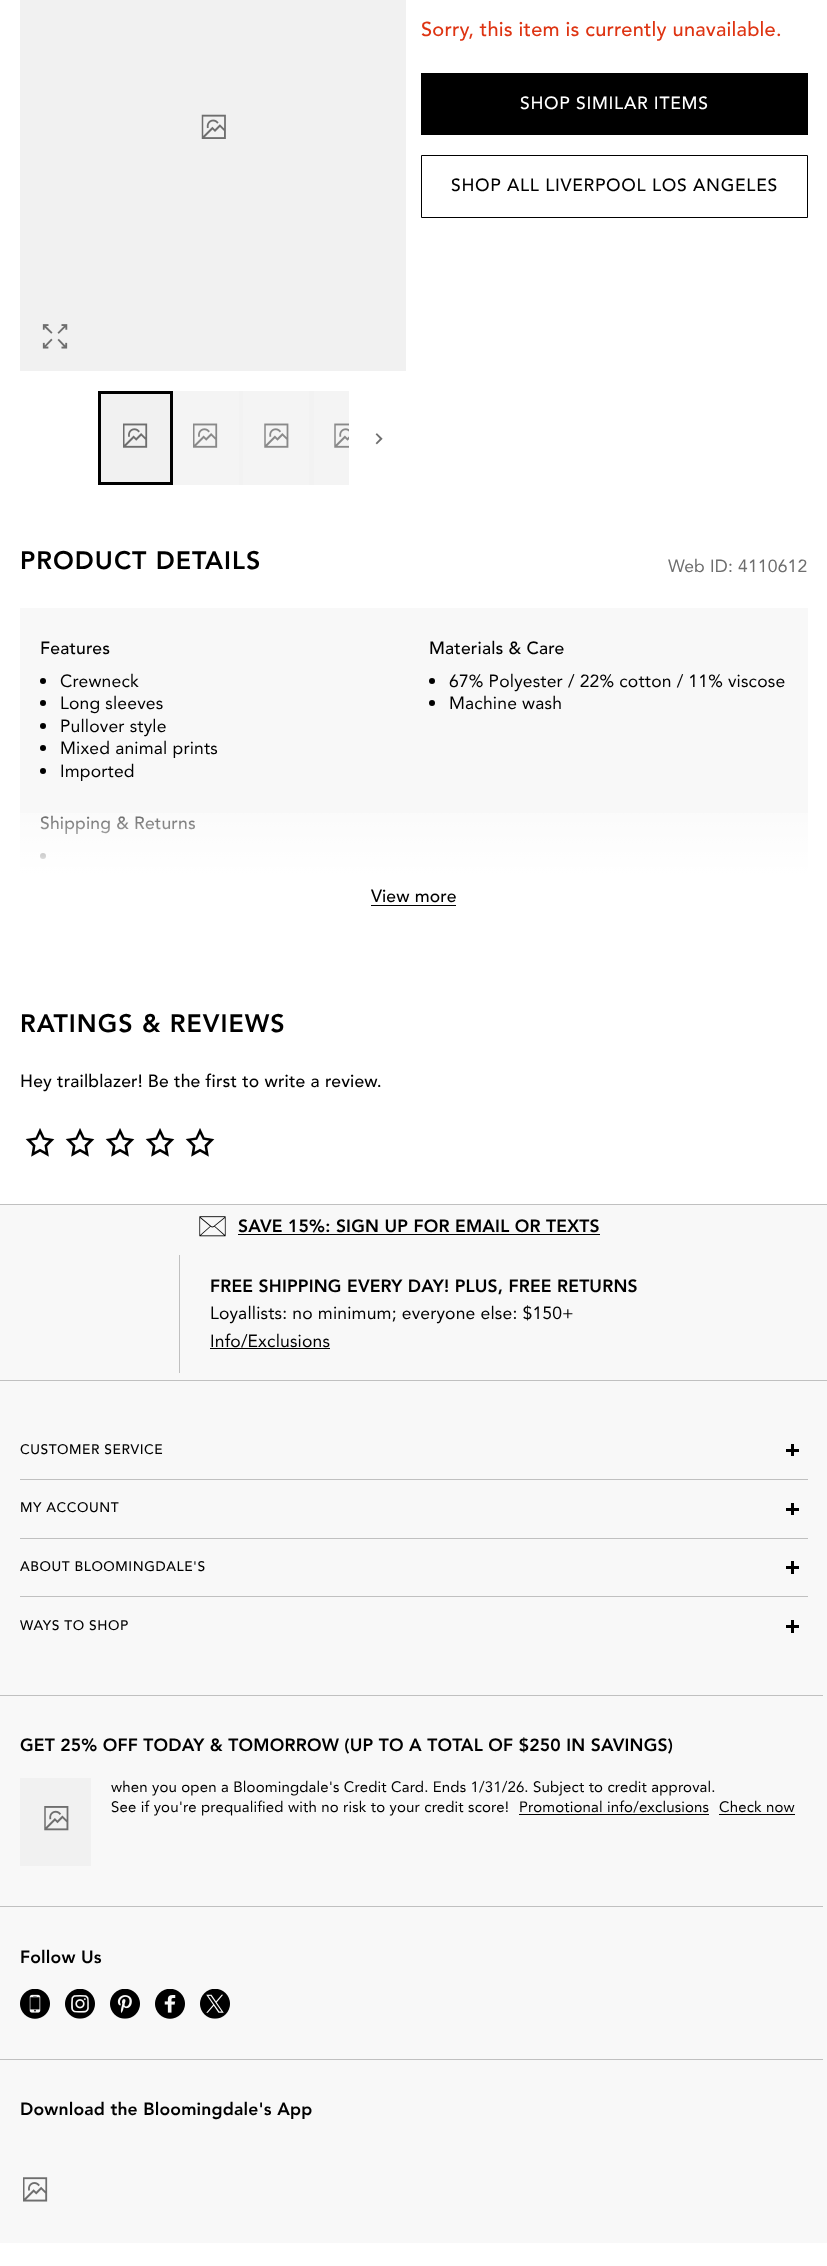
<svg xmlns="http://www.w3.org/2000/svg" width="827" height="2266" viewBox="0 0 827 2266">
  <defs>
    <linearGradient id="g1" gradientUnits="userSpaceOnUse" x1="414" y1="788" x2="414" y2="908"><stop offset="0" stop-color="#fff" stop-opacity="0"/><stop offset="0.28" stop-color="#fff" stop-opacity="0.5"/><stop offset="0.72" stop-color="#fff"/></linearGradient>
  </defs>
  <rect width="100%" height="100%" fill="#fff"/>
  <path d="M314 391h35v94H314z" fill="#f4f4f4"/>
  <path d="M243 391h66v94H243z" fill="#f4f4f4"/>
  <path d="M309 391h5v94H309z" fill="#f2f2f2"/>
  <path d="M173 391h66v94H173z" fill="#f4f4f4"/>
  <path d="M239 391h4v94H239z" fill="#f2f2f2"/>
  <path d="M20 0h386v371H20z" fill="#f1f1f1"/>
  <image x="201" y="114" width="25" height="25" href="img/1.png"/>
  <image x="42" y="324" width="26" height="25" href="img/2.png"/>
  <path d="M101 394h67v88H101z" fill="#f1f1f1"/>
  <path d="M168 391h2v94H168z" fill="#f1f1f1"/>
  <image x="123" y="423" width="25" height="25" href="img/3.png"/>
  <path d="M99.5 392.5h72v91H99.5z" fill="none" stroke="#000" stroke-width="3"/>
  <image x="193" y="423" width="25" height="25" href="img/4.png"/>
  <image x="264" y="423" width="25" height="25" href="img/5.png"/>
  <image x="334" y="423" width="15" height="25" href="img/6.png"/>
  <image x="375" y="433" width="8" height="12" href="img/7.png"/>
  <path d="M421 73h387v62H421z" fill="#000"/>
  <path d="M421.5 155.5h386v62H421.5z" fill="none" stroke="#000"/>
  <path d="M20 608h788v266H20z" fill="#f8f8f8"/>
  <circle cx="43" cy="681" r="3" fill="#000"/>
  <circle cx="43" cy="703" r="3" fill="#000"/>
  <circle cx="43" cy="726" r="3" fill="#000"/>
  <circle cx="43" cy="748" r="3" fill="#000"/>
  <circle cx="43" cy="771" r="3" fill="#000"/>
  <circle cx="432" cy="681" r="3" fill="#000"/>
  <circle cx="432" cy="703" r="3" fill="#000"/>
  <circle cx="43" cy="856" r="3" fill="#000"/>
  <path d="M371 905h85v1H371z" fill="#000"/>
  <image x="25" y="1128" width="30" height="29" href="img/8.png"/>
  <image x="65" y="1128" width="30" height="29" href="img/8.png"/>
  <image x="105" y="1128" width="30" height="29" href="img/8.png"/>
  <image x="145" y="1128" width="30" height="29" href="img/8.png"/>
  <image x="185" y="1128" width="30" height="29" href="img/8.png"/>
  <path d="M0 1205h827v175H0z" fill="#f8f8f8"/>
  <path d="M0 1204h827v1H0z" fill="#c0c0c0"/>
  <path d="M0 1380h827v1H0z" fill="#c0c0c0"/>
  <image x="199" y="1216" width="27" height="21" href="img/9.png"/>
  <path d="M238 1234h362v1H238z" fill="#000"/>
  <path d="M179 1255h1v118H179z" fill="#c0c0c0"/>
  <path d="M210 1348h120v1H210z" fill="#000"/>
  <path d="M0 1381h827v862H0z" fill="#f8f8f8"/>
  <path d="M20 1479h788v1H20z" fill="#c0c0c0"/>
  <path d="M786 1449h13v3H786z" fill="#000"/>
  <path d="M791 1444h3v12H791z" fill="#000"/>
  <path d="M20 1538h788v1H20z" fill="#c0c0c0"/>
  <path d="M786 1508h13v3H786z" fill="#000"/>
  <path d="M791 1503h3v12H791z" fill="#000"/>
  <path d="M20 1596h788v1H20z" fill="#c0c0c0"/>
  <path d="M786 1566h13v3H786z" fill="#000"/>
  <path d="M791 1561h3v13H791z" fill="#000"/>
  <path d="M786 1625h13v3H786z" fill="#000"/>
  <path d="M791 1620h3v13H791z" fill="#000"/>
  <path d="M0 1695h823v1H0z" fill="#c0c0c0"/>
  <path d="M20 1778h71v88H20z" fill="#f1f1f1"/>
  <image x="44" y="1806" width="25" height="25" href="img/10.png"/>
  <path d="M519 1814h190v1H519z" fill="#000"/>
  <path d="M719 1814h76v1H719z" fill="#000"/>
  <path d="M0 1906h823v1H0z" fill="#c0c0c0"/>
  <image x="20" y="1989" width="30" height="30" href="img/11.png"/>
  <image x="65" y="1989" width="30" height="30" href="img/12.png"/>
  <image x="110" y="1989" width="30" height="30" href="img/13.png"/>
  <image x="155" y="1989" width="30" height="30" href="img/14.png"/>
  <image x="200" y="1989" width="30" height="30" href="img/15.png"/>
  <path d="M0 2059h823v1H0z" fill="#c0c0c0"/>
  <path d="M20 2191h1v1H20z" fill="#f1f1f1"/>
  <image x="23" y="2177" width="25" height="25" href="img/16.png"/>
  <text x="421" y="36" font-family="Avenir" font-size="20" font-weight="500" letter-spacing="0.2" fill="#de3412">Sorry, this item is currently unavailable.</text>
  <text x="520" y="109" font-family="Avenir" font-size="17.5" font-weight="500" letter-spacing="0.7" fill="#fff">SHOP SIMILAR ITEMS</text>
  <text x="451" y="191" font-family="Avenir" font-size="17.5" font-weight="500" letter-spacing="0.7" fill="#000">SHOP ALL LIVERPOOL LOS ANGELES</text>
  <text x="20" y="569" font-family="Avenir" font-size="25" font-weight="900" letter-spacing="1" fill="#000">PRODUCT DETAILS</text>
  <text x="668" y="572" font-family="Avenir" font-size="17.5" letter-spacing="0.18" fill="#6e6e6e">Web ID: 4110612</text>
  <text x="40" y="654" font-family="Avenir" font-size="17.5" font-weight="500" letter-spacing="0.18" fill="#000">Features</text>
  <g font-family="Avenir" font-size="17.5" letter-spacing="0.18" fill="#000">
    <text x="60" y="687">Crewneck</text>
    <text x="60" y="709">Long sleeves</text>
    <text x="60" y="732">Pullover style</text>
    <text x="60" y="754">Mixed animal prints</text>
    <text x="60" y="777">Imported</text>
  </g>
  <text x="429" y="654" font-family="Avenir" font-size="17.5" font-weight="500" letter-spacing="0.18" fill="#000">Materials &amp; Care</text>
  <g font-family="Avenir" font-size="17.5" letter-spacing="0.18" fill="#000">
    <text x="449" y="687">67% Polyester / 22% cotton / 11% viscose</text>
    <text x="449" y="709">Machine wash</text>
  </g>
  <text x="40" y="829" font-family="Avenir" font-size="17.5" font-weight="500" letter-spacing="0.18" fill="#000">Shipping &amp; Returns</text>
  <path d="M20 813h788v61H20z" fill="url(#g1)"/>
  <text x="371" y="902" font-family="Avenir" font-size="17.5" font-weight="500" letter-spacing="0.18" fill="#000">View more</text>
  <text x="20" y="1032" font-family="Avenir" font-size="25" font-weight="900" letter-spacing="1" fill="#000">RATINGS &amp; REVIEWS</text>
  <text x="20" y="1087" font-family="Avenir" font-size="17.5" font-weight="500" letter-spacing="0.18" fill="#000">Hey trailblazer! Be the first to write a review.</text>
  <g font-family="Avenir" font-size="17.5" font-weight="900" letter-spacing="0.18" fill="#000">
    <text x="238" y="1232">SAVE 15%: SIGN UP FOR EMAIL OR TEXTS</text>
    <text x="210" y="1292">FREE SHIPPING EVERY DAY! PLUS, FREE RETURNS</text>
  </g>
  <g font-family="Avenir" font-size="17.5" letter-spacing="0.18" fill="#000">
    <text x="210" y="1319">Loyallists: no minimum; everyone else: $150+</text>
    <text x="210" y="1347">Info/Exclusions</text>
  </g>
  <g font-family="Avenir" font-size="13.75" font-weight="500" letter-spacing="0.55" fill="#000">
    <text x="20" y="1454">CUSTOMER SERVICE</text>
    <text x="20" y="1512">MY ACCOUNT</text>
    <text x="20" y="1571">ABOUT BLOOMINGDALE'S</text>
    <text x="20" y="1630">WAYS TO SHOP</text>
  </g>
  <text x="20" y="1751" font-family="Avenir" font-size="17.5" font-weight="900" letter-spacing="0.18" fill="#000">GET 25% OFF TODAY &amp; TOMORROW (UP TO A TOTAL OF $250 IN SAVINGS)</text>
  <g font-family="Avenir" font-size="15" letter-spacing="0.15" fill="#000">
    <text x="111" y="1792">when you open a Bloomingdale's Credit Card. Ends 1/31/26. Subject to credit approval.</text>
    <text x="111" y="1812">See if you're prequalified with no risk to your credit score!</text>
    <text x="519" y="1812">Promotional info/exclusions</text>
    <text x="719" y="1812">Check now</text>
  </g>
  <g font-family="Avenir" font-size="17.5" font-weight="900" letter-spacing="0.18" fill="#000">
    <text x="20" y="1963">Follow Us</text>
    <text x="20" y="2115">Download the Bloomingdale's App</text>
  </g>
</svg>
